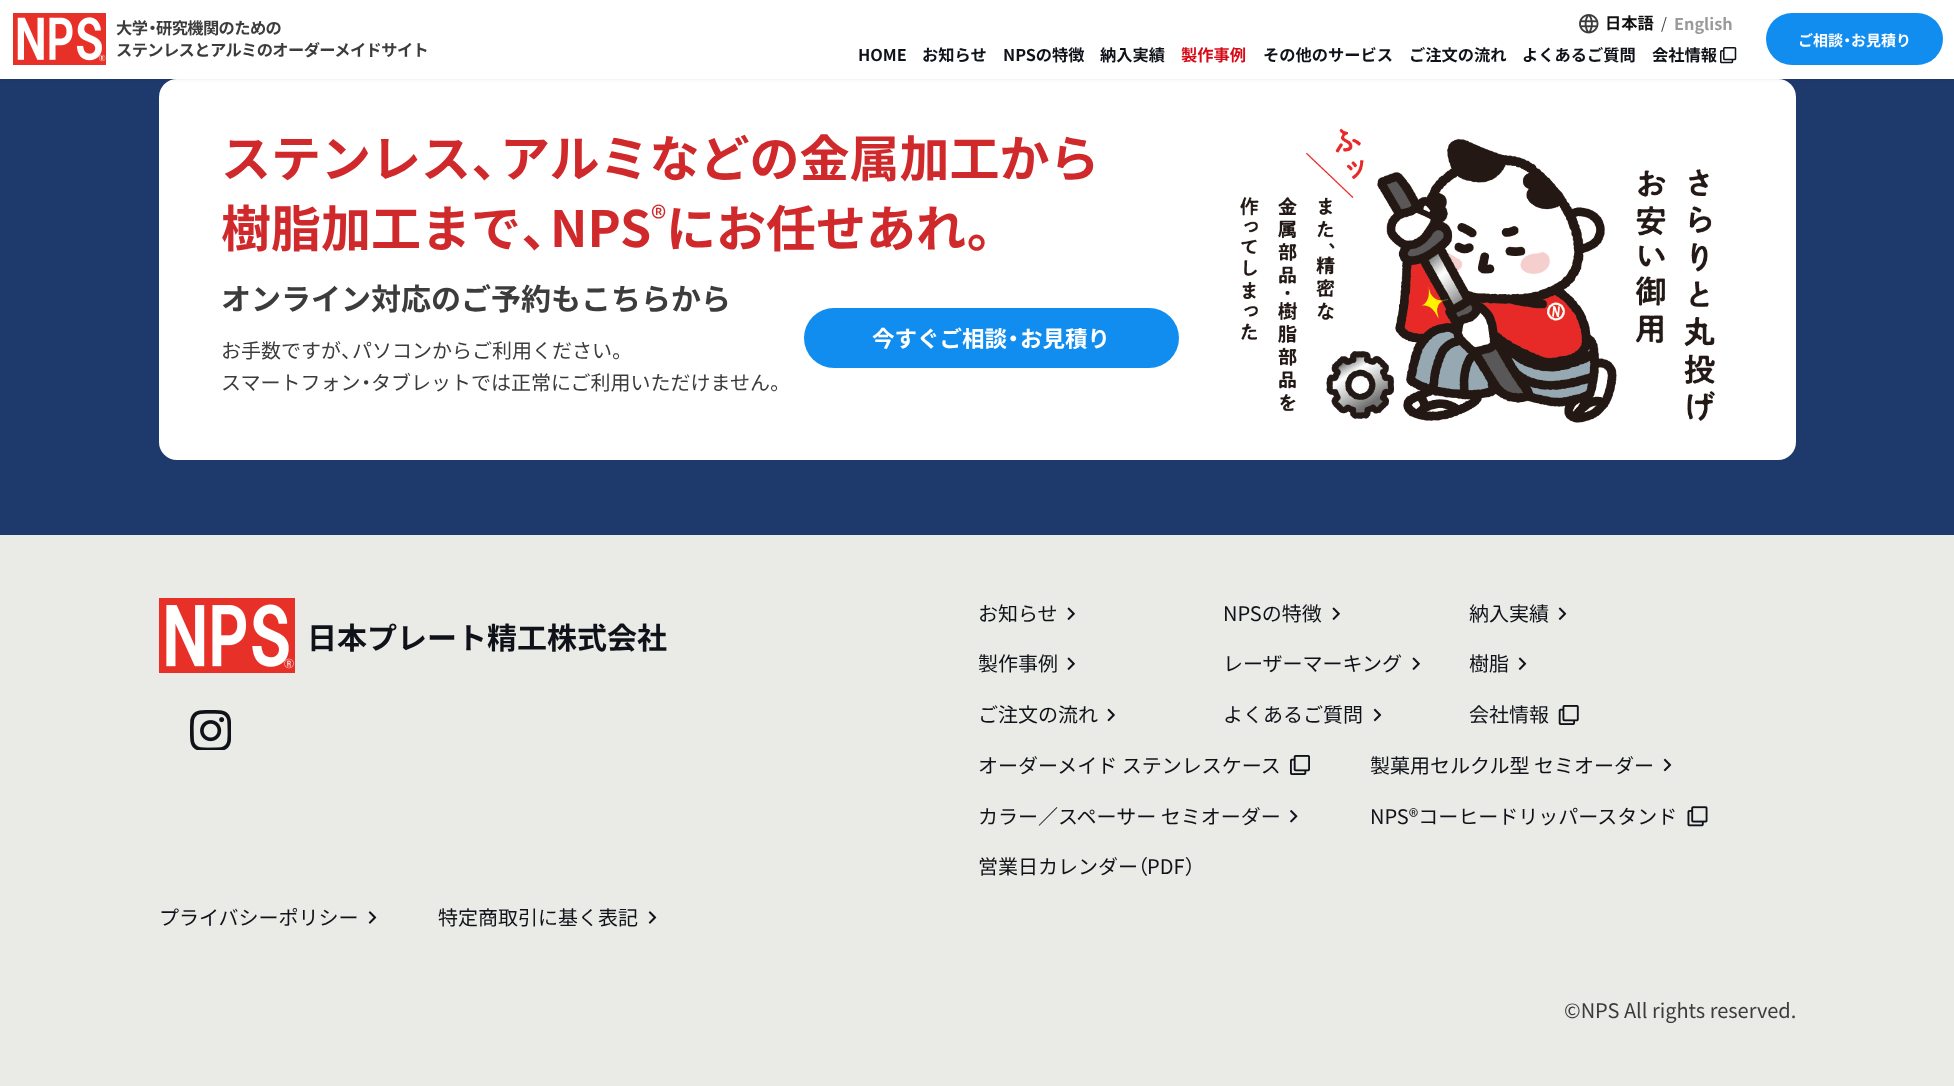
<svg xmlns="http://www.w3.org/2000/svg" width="1954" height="1086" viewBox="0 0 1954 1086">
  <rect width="100%" height="100%" fill="#1e3a6c"/>
  <rect x="159" y="79" width="1637" height="381" rx="18" fill="#fff"/>
  <path d="M4 4h1947v71H4z" fill="#00000080" filter="blur(3px)"/>
  <path d="M0 0h1954v79H0z" fill="#fff"/>
  <image x="13" y="13" width="93" height="52" href="img/1.png"/>
  <image x="1579" y="14" width="20" height="20" href="img/2.png"/>
  <image x="1720" y="47" width="17" height="17" href="img/3.png"/>
  <rect x="1766" y="13" width="177" height="52" rx="26" fill="#118df0"/>
  <rect x="804" y="308" width="375" height="60" rx="30" fill="#118df0"/>
  <image x="1240" y="128" width="475" height="295" href="img/4.png"/>
  <path d="M0 535h1954v551H0z" fill="#eaeae7"/>
  <image x="159" y="598" width="136" height="75" href="img/5.png"/>
  <image x="190" y="710" width="41" height="40" href="img/6.png"/>
  <image x="1067" y="607" width="8" height="13" href="img/7.png"/>
  <image x="1332" y="607" width="8" height="13" href="img/7.png"/>
  <image x="1558" y="607" width="9" height="13" href="img/8.png"/>
  <image x="1067" y="657" width="8" height="13" href="img/7.png"/>
  <image x="1412" y="657" width="8" height="13" href="img/7.png"/>
  <image x="1518" y="657" width="9" height="13" href="img/8.png"/>
  <image x="1107" y="708" width="8" height="14" href="img/9.png"/>
  <image x="1373" y="708" width="9" height="14" href="img/10.png"/>
  <image x="1558" y="705" width="21" height="20" href="img/11.png"/>
  <image x="1290" y="755" width="20" height="20" href="img/12.png"/>
  <image x="1663" y="758" width="9" height="14" href="img/10.png"/>
  <image x="1290" y="810" width="8" height="13" href="img/13.png"/>
  <image x="1687" y="806" width="21" height="21" href="img/14.png"/>
  <image x="368" y="911" width="9" height="13" href="img/15.png"/>
  <image x="648" y="911" width="9" height="13" href="img/15.png"/>
  <text x="116" y="34" font-family="Noto Sans JP" font-size="16.25" font-weight="bold" letter-spacing="-0.6" fill="#3c3c3c">大学</text>
  <text x="148" y="34" font-family="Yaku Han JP" font-size="16.25" font-weight="bold" letter-spacing="-0.6" fill="#3c3c3c">・</text>
  <g font-family="Noto Sans JP" font-size="16.25" font-weight="bold" letter-spacing="-0.6" fill="#3c3c3c">
    <text x="156" y="34">研究機関のための</text>
    <text x="116" y="56">ステンレスとアルミのオーダーメイドサイト</text>
  </g>
  <text x="1605" y="29" font-family="Noto Sans JP" font-size="16.25" font-weight="bold" fill="#101010">日本語</text>
  <text x="1661" y="29" font-family="Noto Sans JP" font-size="15" fill="#3c3c3c">/</text>
  <text x="1674" y="30" font-family="Noto Sans JP" font-size="16.25" font-weight="bold" fill="#9a9a9a">English</text>
  <g font-family="Noto Sans JP" font-size="16.25" font-weight="bold" fill="#0f1218">
    <text x="858" y="61">HOME</text>
    <text x="922" y="61">お知らせ</text>
    <text x="1003" y="61">NPSの特徴</text>
    <text x="1100" y="61">納入実績</text>
  </g>
  <text x="1181" y="61" font-family="Noto Sans JP" font-size="16.25" font-weight="bold" fill="#d60b17">製作事例</text>
  <g font-family="Noto Sans JP" font-size="16.25" font-weight="bold" fill="#0f1218">
    <text x="1263" y="61">その他のサービス</text>
    <text x="1409" y="61">ご注文の流れ</text>
    <text x="1522" y="61">よくあるご質問</text>
    <text x="1652" y="61">会社情報</text>
  </g>
  <text x="1798" y="46" font-family="Noto Sans JP" font-size="15" font-weight="bold" fill="#fff">ご相談</text>
  <text x="1843" y="46" font-family="Yaku Han JP" font-size="15" font-weight="bold" fill="#fff">・</text>
  <text x="1851" y="46" font-family="Noto Sans JP" font-size="15" font-weight="bold" fill="#fff">お見積り</text>
  <text x="221" y="177" font-family="Noto Sans JP" font-size="50" font-weight="bold" fill="#d0292c">ステンレス</text>
  <text x="471" y="177" font-family="Yaku Han JP" font-size="50" font-weight="bold" fill="#d0292c">、</text>
  <g font-family="Noto Sans JP" font-size="50" font-weight="bold" fill="#d0292c">
    <text x="500" y="177">アルミなどの金属加工から</text>
    <text x="221" y="247">樹脂加工まで</text>
  </g>
  <text x="521" y="247" font-family="Yaku Han JP" font-size="50" font-weight="bold" fill="#d0292c">、</text>
  <text x="550" y="247" font-family="Noto Sans JP" font-size="50" font-weight="bold" fill="#d0292c">NPS</text>
  <text x="651" y="230" font-family="Noto Sans JP" font-size="32" fill="#d0292c">®</text>
  <text x="666" y="247" font-family="Noto Sans JP" font-size="50" font-weight="bold" fill="#d0292c">にお任せあれ</text>
  <text x="966" y="247" font-family="Yaku Han JP" font-size="50" font-weight="bold" fill="#d0292c">。</text>
  <text x="221" y="310" font-family="Noto Sans JP" font-size="30" font-weight="bold" fill="#3c3c3c">オンライン対応のご予約もこちらから</text>
  <text x="221" y="358" font-family="Noto Sans JP" font-size="20" fill="#3c3c3c">お手数ですが</text>
  <text x="341" y="358" font-family="Yaku Han JP" font-size="20" fill="#3c3c3c">、</text>
  <text x="352" y="358" font-family="Noto Sans JP" font-size="20" fill="#3c3c3c">パソコンからご利用ください</text>
  <text x="612" y="358" font-family="Yaku Han JP" font-size="20" fill="#3c3c3c">。</text>
  <text x="221" y="390" font-family="Noto Sans JP" font-size="20" fill="#3c3c3c">スマートフォン</text>
  <text x="361" y="390" font-family="Yaku Han JP" font-size="20" fill="#3c3c3c">・</text>
  <text x="371" y="390" font-family="Noto Sans JP" font-size="20" fill="#3c3c3c">タブレットでは正常にご利用いただけません</text>
  <text x="770" y="390" font-family="Yaku Han JP" font-size="20" fill="#3c3c3c">。</text>
  <text x="872" y="347" font-family="Noto Sans JP" font-size="22.5" font-weight="bold" fill="#fff">今すぐご相談</text>
  <text x="1007" y="347" font-family="Yaku Han JP" font-size="22.5" font-weight="bold" fill="#fff">・</text>
  <text x="1020" y="347" font-family="Noto Sans JP" font-size="22.5" font-weight="bold" fill="#fff">お見積り</text>
  <text x="307" y="649" font-family="Noto Sans JP" font-size="30" font-weight="bold" fill="#0f1218">日本プレート精工株式会社</text>
  <g font-family="Noto Sans JP" font-size="20" fill="#0f1218">
    <text x="978" y="621">お知らせ</text>
    <text x="1223" y="621">NPSの特徴</text>
    <text x="1469" y="621">納入実績</text>
    <text x="978" y="671">製作事例</text>
    <text x="1223" y="671">レーザーマーキング</text>
    <text x="1469" y="671">樹脂</text>
    <text x="978" y="722">ご注文の流れ</text>
    <text x="1223" y="722">よくあるご質問</text>
    <text x="1469" y="722">会社情報</text>
    <text x="978" y="773">オーダーメイド ステンレスケース</text>
    <text x="1370" y="773">製菓用セルクル型 セミオーダー</text>
    <text x="978" y="824">カラー／スペーサー セミオーダー</text>
    <text x="1370" y="824">NPS®コーヒードリッパースタンド</text>
    <text x="978" y="874">営業日カレンダー</text>
  </g>
  <text x="1138" y="874" font-family="Yaku Han JP" font-size="20" fill="#0f1218">（</text>
  <text x="1147" y="874" font-family="Noto Sans JP" font-size="20" fill="#0f1218">PDF</text>
  <text x="1185" y="874" font-family="Yaku Han JP" font-size="20" fill="#0f1218">）</text>
  <g font-family="Noto Sans JP" font-size="20" fill="#0f1218">
    <text x="159" y="925">プライバシーポリシー</text>
    <text x="438" y="925">特定商取引に基く表記</text>
  </g>
  <text x="1564" y="1018" font-family="Noto Sans JP" font-size="20" fill="#3c3c3c">©NPS All rights reserved.</text>
</svg>
